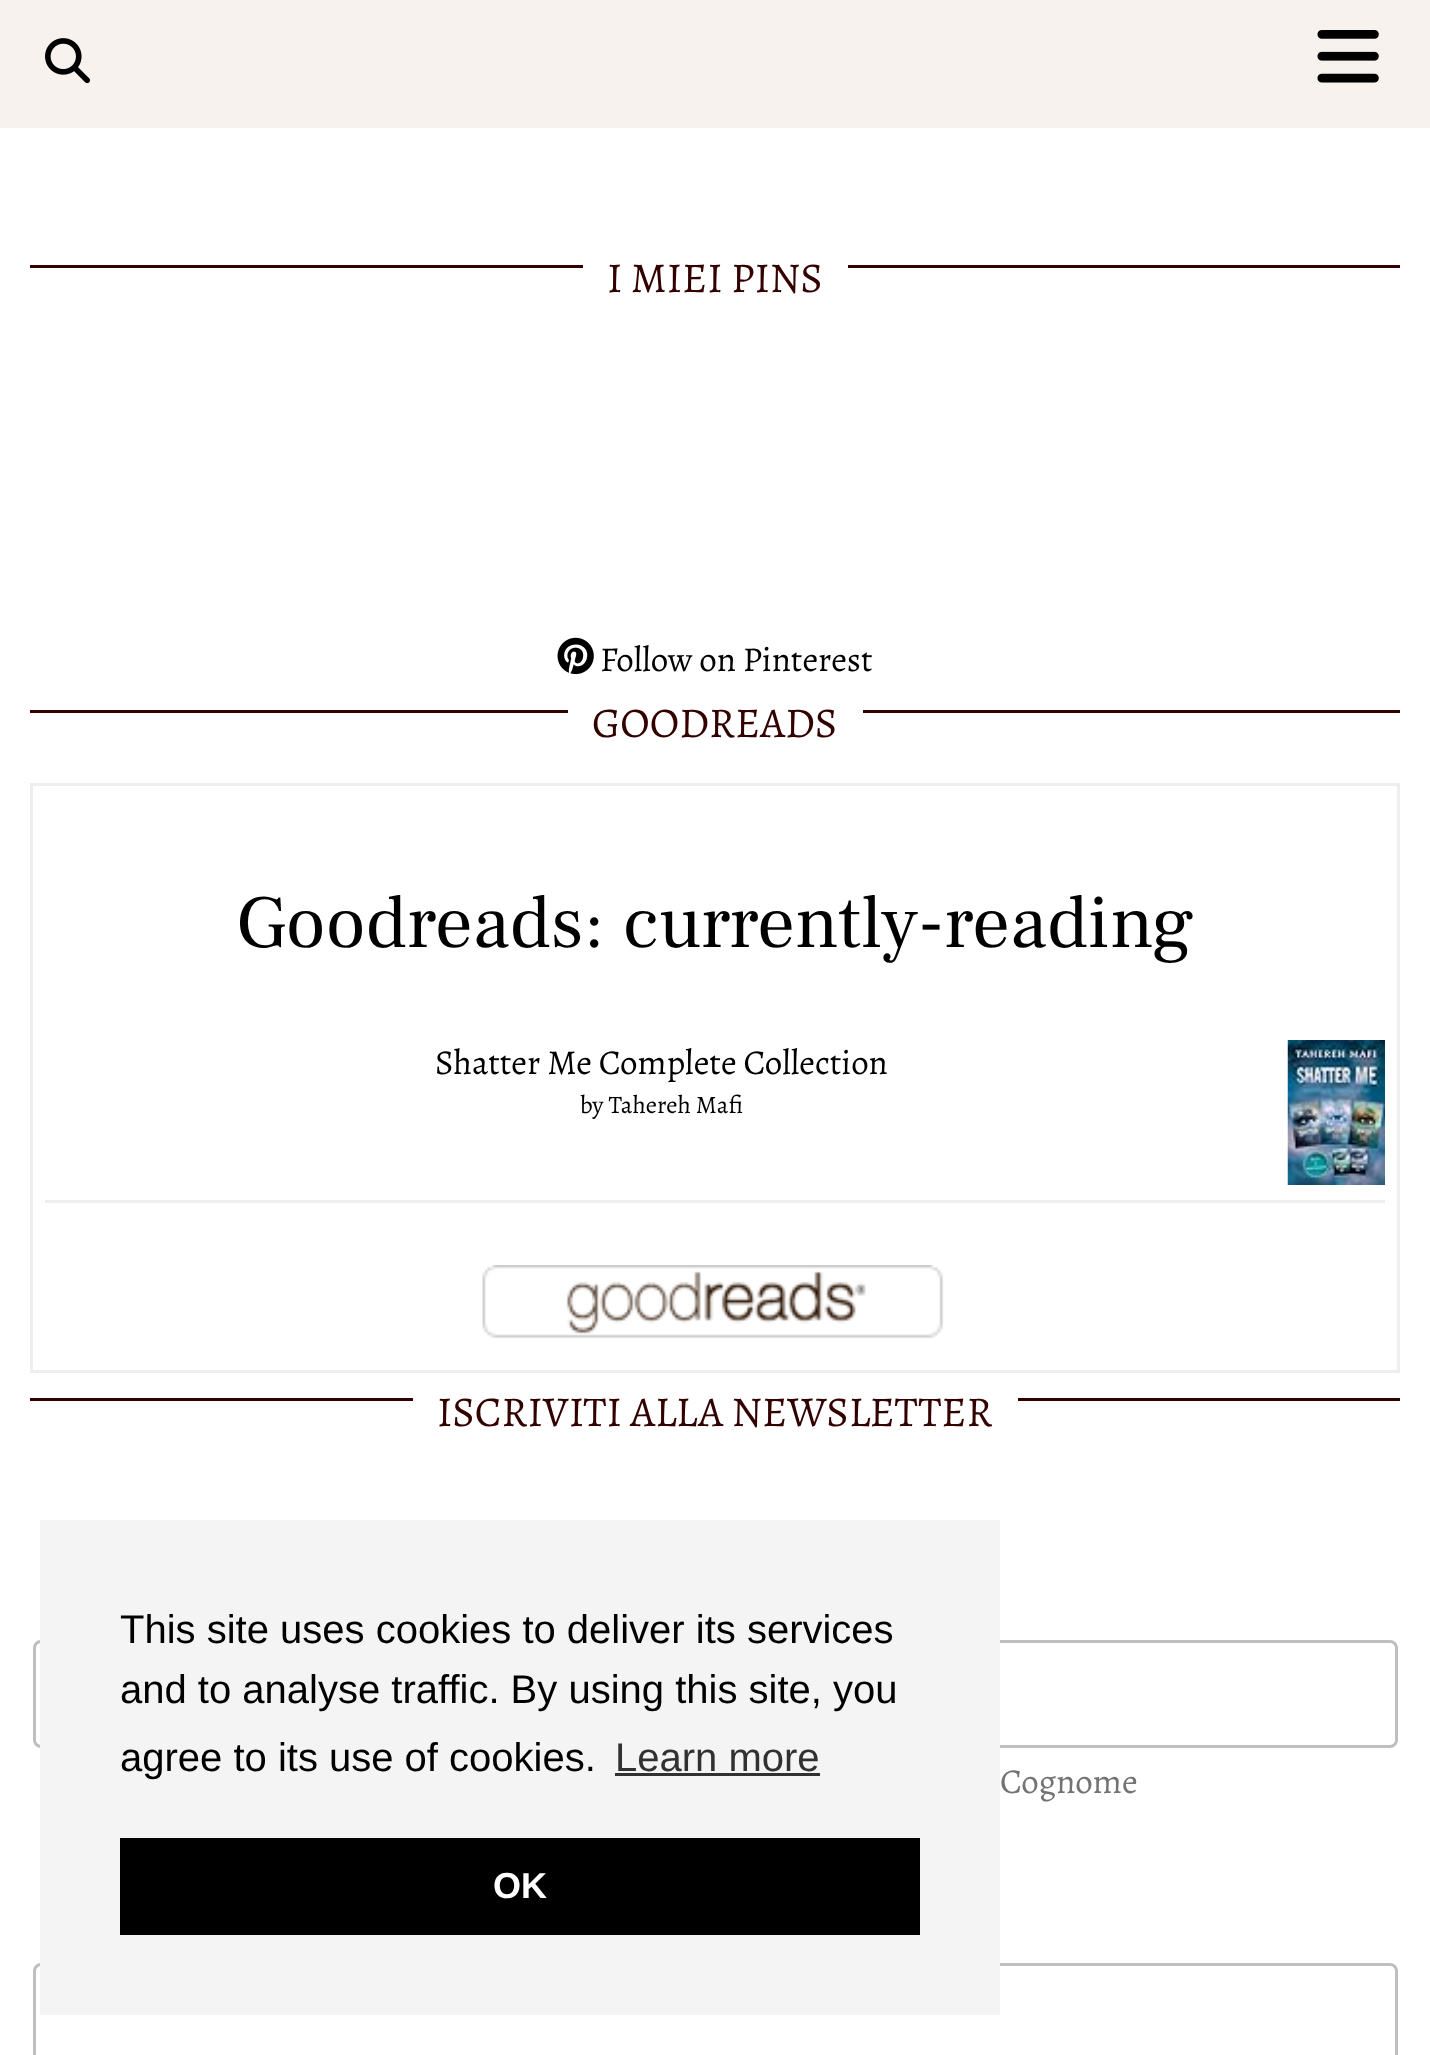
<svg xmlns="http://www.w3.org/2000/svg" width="1430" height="2055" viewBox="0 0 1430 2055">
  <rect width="100%" height="100%" fill="#fff"/>
  <path d="M0 0h1430v128H0z" fill="#f8f2ee"/>
  <image x="45" y="38" width="45" height="46" href="img/1.png"/>
  <image x="1317" y="30" width="62" height="53" href="img/2.png"/>
  <path d="M30 265h1370v3H30z" fill="#300"/>
  <path d="M583 265h265v3H583z" fill="#fff"/>
  <image x="557" y="637" width="37" height="38" href="img/3.png"/>
  <path d="M30 710h1370v3H30z" fill="#300"/>
  <path d="M568 710h295v3H568z" fill="#fff"/>
  <path d="M31.5 784.5h1367v587H31.5z" fill="none" stroke="#eee" stroke-width="3"/>
  <path d="M45 1200h1340v3H45z" fill="#eee"/>
  <image x="1287" y="1040" width="98" height="145" href="img/4.png"/>
  <image x="482" y="1265" width="462" height="74" href="img/5.png"/>
  <path d="M30 1398h1370v3H30z" fill="#300"/>
  <path d="M413 1398h605v3H413z" fill="#fff"/>
  <rect x="34.5" y="1641.5" width="654" height="105" rx="6.5" fill="none" stroke="#bfbfbf" stroke-width="3"/>
  <rect x="741.5" y="1641.5" width="655" height="105" rx="6.5" fill="none" stroke="#bfbfbf" stroke-width="3"/>
  <rect x="34.5" y="1964.5" width="1362" height="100" rx="6.5" fill="none" stroke="#bfbfbf" stroke-width="3"/>
  <path d="M40 1520h960v495H40z" fill="#f4f4f4"/>
  <path d="M615 1773h205v3H615z" fill="#313131"/>
  <path d="M120 1838h800v97H120z" fill="#000"/>
  <text x="607" y="292" font-family="Alegreya" font-size="42.5" fill="#300">I MIEI PINS</text>
  <text x="600" y="671" font-family="Alegreya" font-size="35" fill="#000">Follow on Pinterest</text>
  <text x="592" y="737" font-family="Alegreya" font-size="42.5" fill="#300">GOODREADS</text>
  <text x="236" y="947" font-family="Frank Ruhl Libre" font-size="75" fill="#000">Goodreads: currently-reading</text>
  <text x="435" y="1074" font-family="Alegreya" font-size="35" fill="#000">Shatter Me Complete Collection</text>
  <text x="580" y="1113" font-family="Alegreya" font-size="25" fill="#000">by Tahereh Mafi</text>
  <text x="437" y="1426" font-family="Alegreya" font-size="42.5" fill="#300">ISCRIVITI ALLA NEWSLETTER</text>
  <text x="1000" y="1793" font-family="Alegreya" font-size="35" fill="#737373">Cognome</text>
  <g font-family="Liberation Sans" font-size="40" fill="#000">
    <text x="120" y="1643">This site uses cookies to deliver its services</text>
    <text x="120" y="1703">and to analyse traffic. By using this site, you</text>
    <text x="120" y="1771">agree to its use of cookies.</text>
  </g>
  <text x="615" y="1771" font-family="Liberation Sans" font-size="40" fill="#313131">Learn more</text>
  <text x="493" y="1898" font-family="Liberation Sans" font-size="36" font-weight="bold" fill="#fff">OK</text>
</svg>
